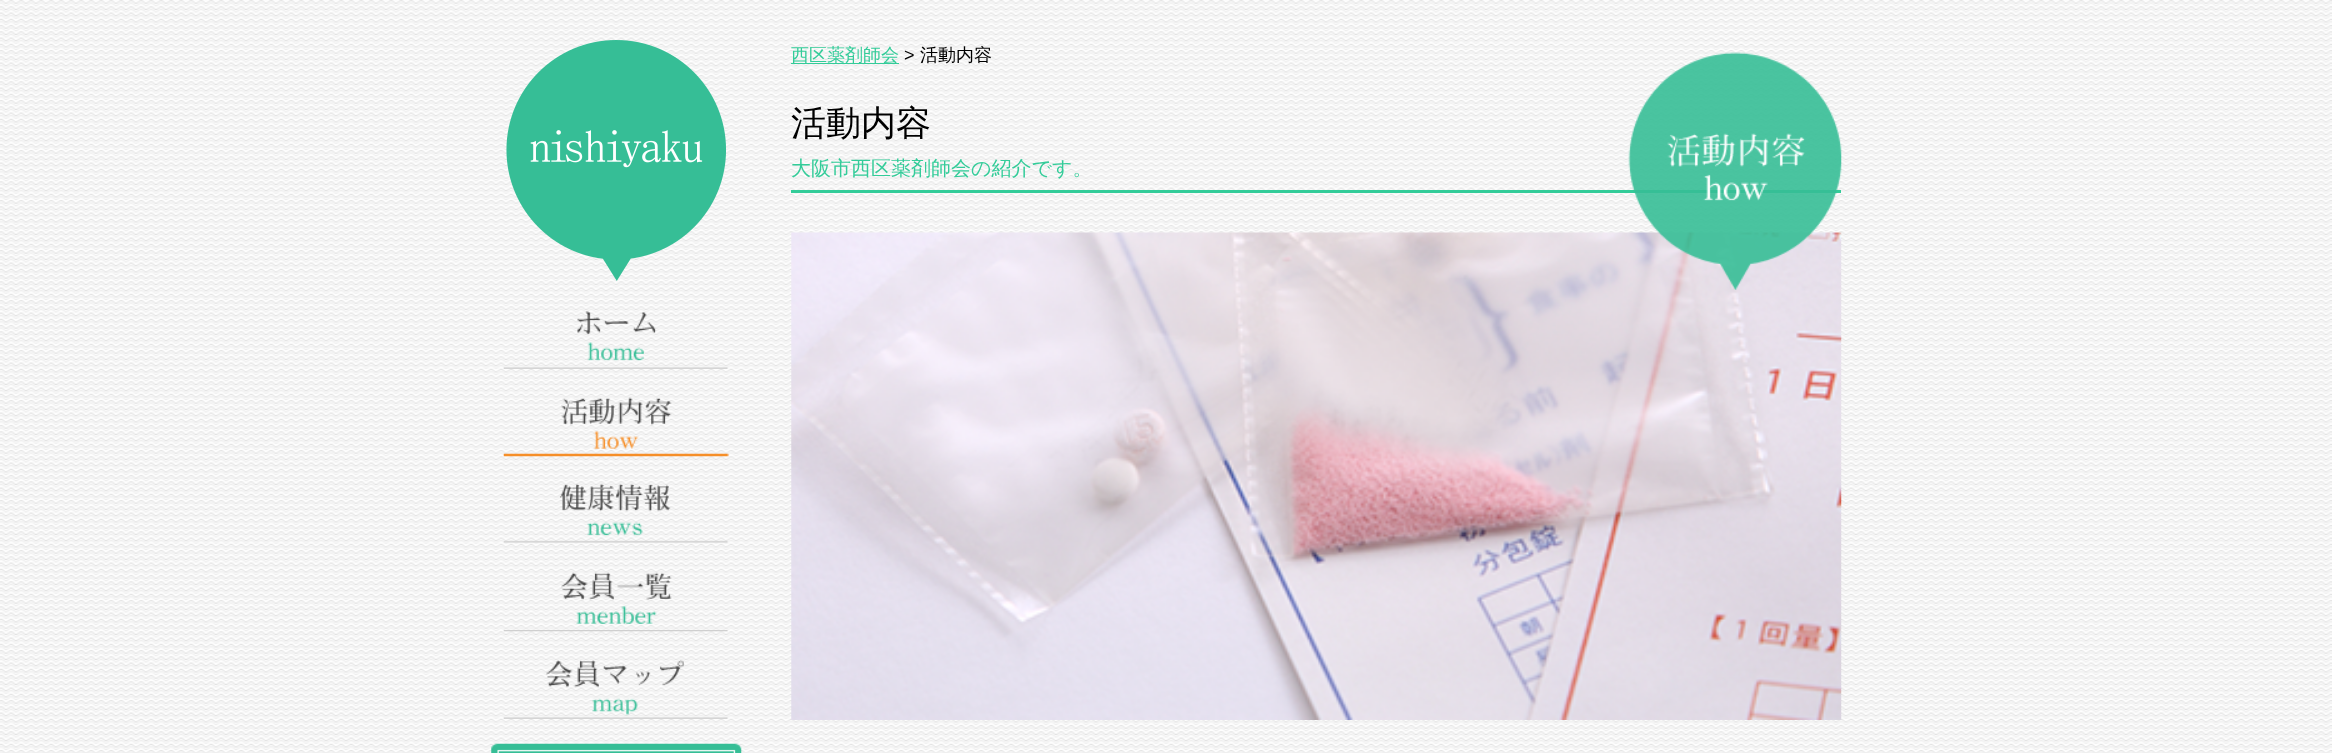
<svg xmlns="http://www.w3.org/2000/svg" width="2332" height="753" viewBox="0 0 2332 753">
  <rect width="100%" height="100%" fill="#fff"/>
  <image x="0" y="0" width="2332" height="753" href="img/1.png"/>
  <image x="506" y="40" width="220" height="241" href="img/2.png"/>
  <image x="503" y="311" width="225" height="58" href="img/3.png"/>
  <image x="503" y="397" width="226" height="60" href="img/4.png"/>
  <image x="503" y="483" width="225" height="60" href="img/5.png"/>
  <image x="503" y="572" width="225" height="60" href="img/6.png"/>
  <image x="503" y="660" width="225" height="59" href="img/7.png"/>
  <image x="491" y="743" width="251" height="10" href="img/8.png"/>
  <path d="M791 63h108v1H791z" fill="#3c9"/>
  <path d="M791 190h1050v3H791z" fill="#3c9"/>
  <image x="791" y="232" width="1051" height="488" href="img/10.png"/>
  <image x="1628" y="52" width="214" height="238" href="img/9.png"/>
  <text x="791" y="61" font-family="WenQuanYi Zen Hei" font-size="18" font-weight="500" fill="#3c9">西区薬剤師会</text>
  <text x="904" y="61" font-family="Liberation Sans" font-size="18" fill="#000">&gt;</text>
  <text x="920" y="61" font-family="WenQuanYi Zen Hei" font-size="18" font-weight="500" fill="#000">活動内容</text>
  <text x="791" y="135" font-family="WenQuanYi Zen Hei" font-size="35" font-weight="500" fill="#000">活動内容</text>
  <text x="791" y="175" font-family="WenQuanYi Zen Hei" font-size="20" font-weight="500" fill="#3c9">大阪市西区薬剤師会の紹介です。</text>
</svg>
